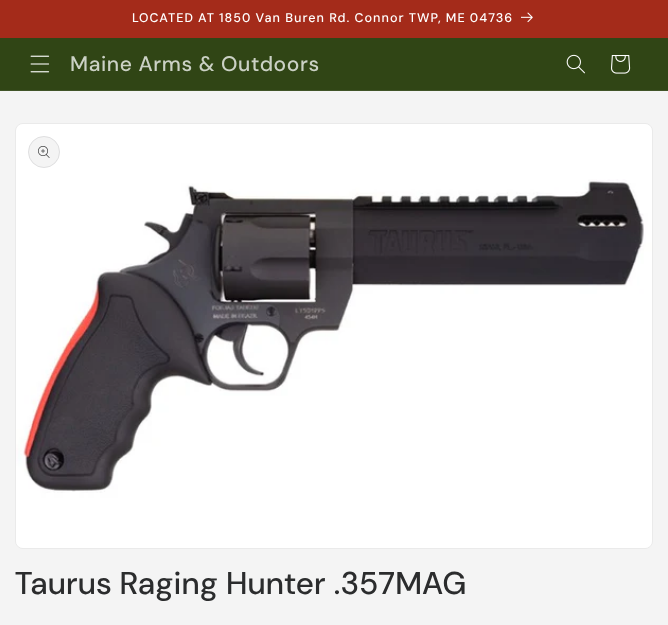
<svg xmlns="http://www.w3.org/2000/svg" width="668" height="625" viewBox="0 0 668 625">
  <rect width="100%" height="100%" fill="#f4f4f4"/>
  <path d="M0 0h668v38H0z" fill="#a42b1a"/>
  <image x="521" y="12" width="12" height="11" href="img/1.png"/>
  <path d="M0 38h668v52H0z" fill="#304515"/>
  <path d="M0 90h668v1H0z" fill="#415428"/>
  <image x="30" y="55" width="20" height="18" href="img/2.png"/>
  <image x="566" y="54" width="19" height="20" href="img/3.png"/>
  <image x="611" y="55" width="20" height="19" href="img/4.png"/>
  <rect x="15.5" y="123.5" width="637" height="425" rx="7.5" fill="none" stroke="#eaeaea"/>
  <image x="16" y="124" width="636" height="424" href="img/5.png"/>
  <circle cx="44" cy="152" r="16" fill="#f4f4f4"/>
  <circle cx="44" cy="152" r="15.5" fill="none" stroke="#2b2c2d1a"/>
  <image x="38" y="146" width="12" height="12" href="img/6.png"/>
  <text x="132" y="22" word-spacing="-0.1" font-family="'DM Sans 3'" font-size="12.6" font-weight="500" letter-spacing="1" fill="#fff">LOCATED AT 1850 Van Buren Rd. Connor TWP, ME 04736</text>
  <text x="70" y="71" font-family="'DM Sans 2'" font-size="21" font-weight="500" letter-spacing="0.6" fill="#cbd1c5">Maine Arms &amp; Outdoors</text>
  <text x="15" y="594" font-family="DM Sans" font-size="31.5" font-weight="500" letter-spacing="0.6" fill="#2b2c2d">Taurus Raging Hunter .357MAG</text>
</svg>
